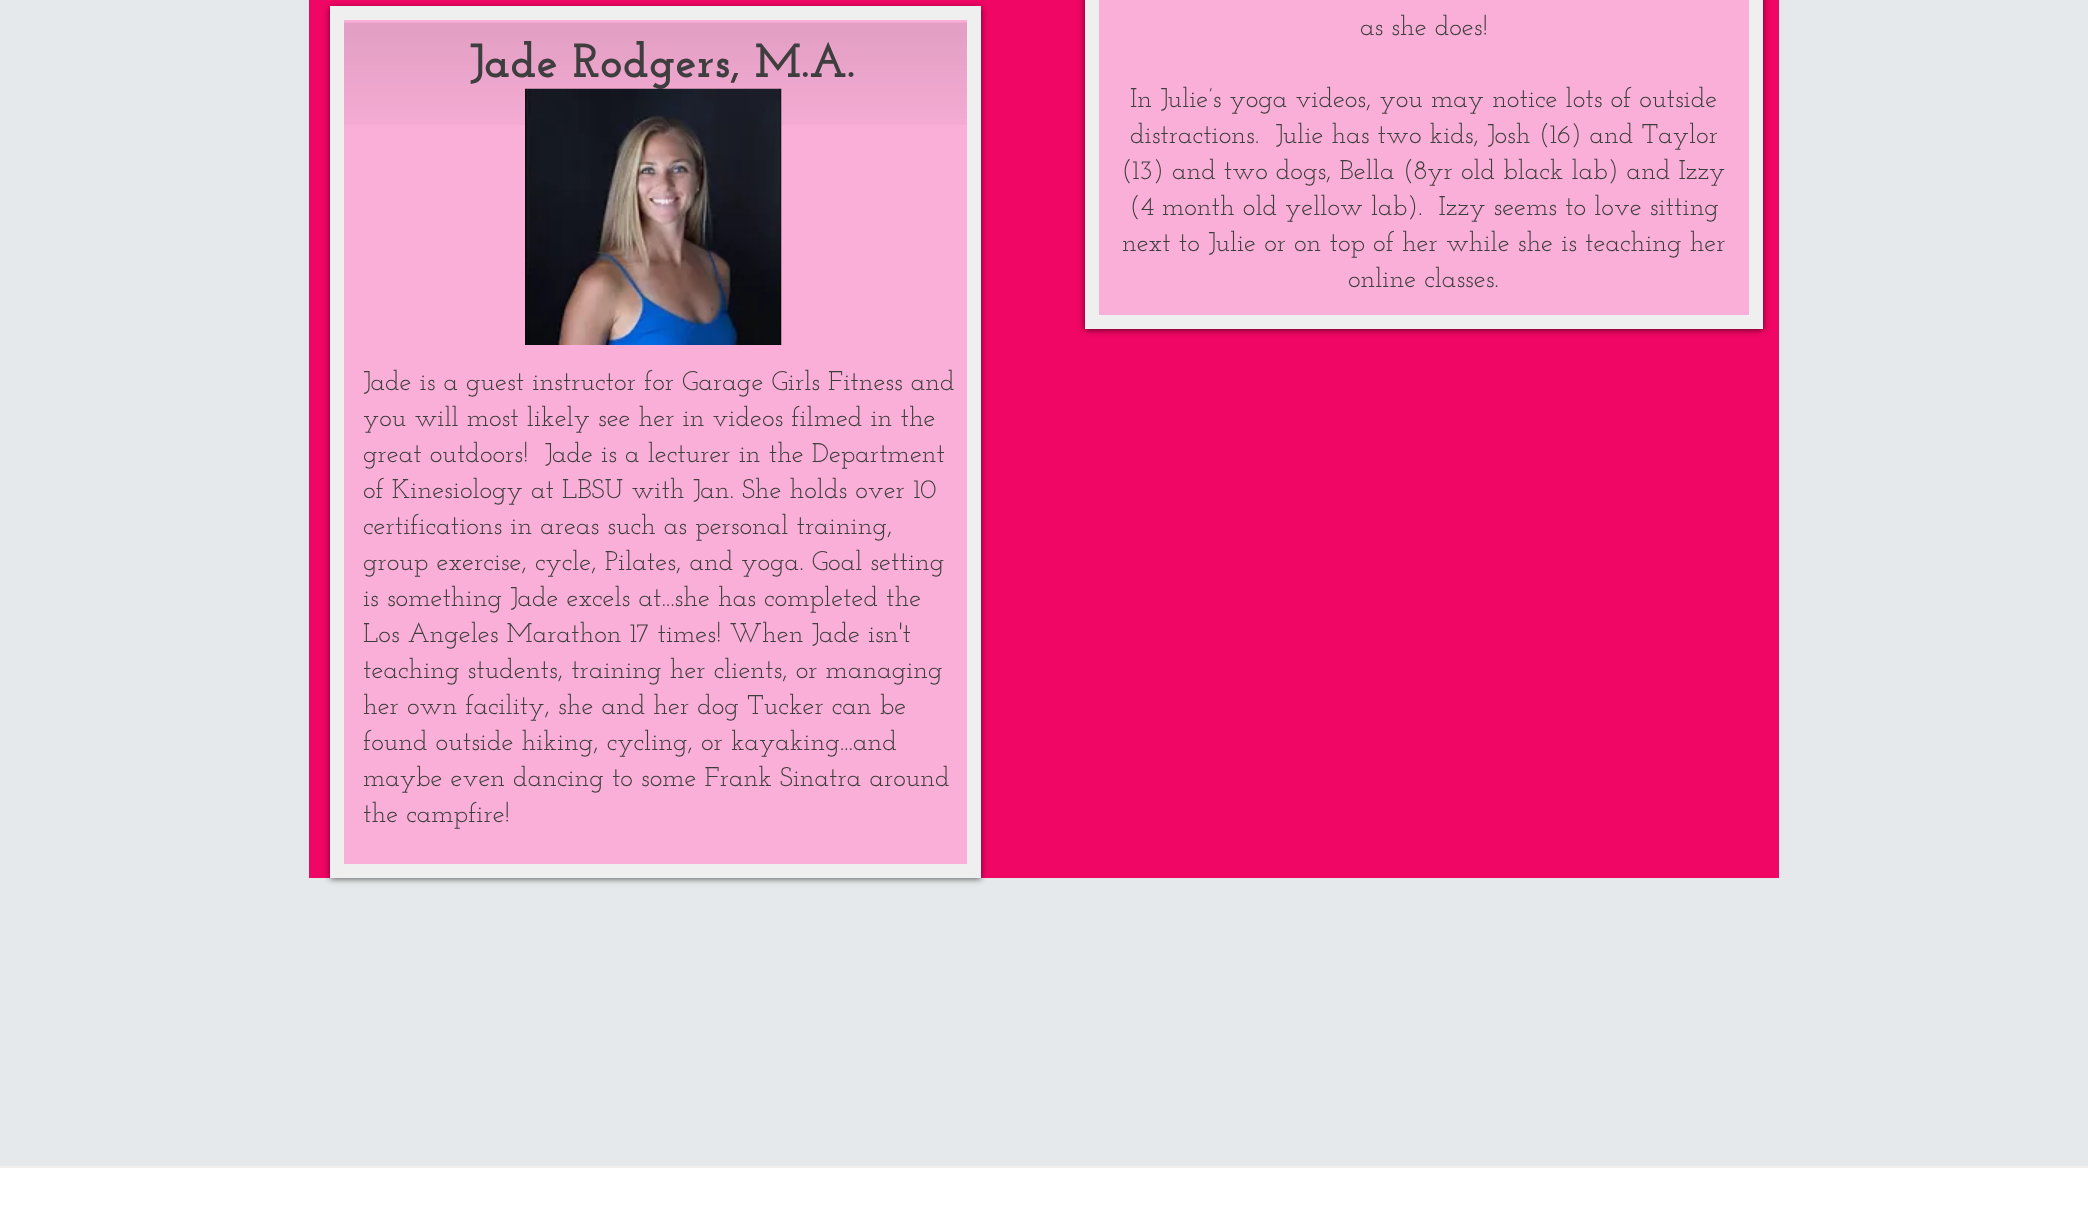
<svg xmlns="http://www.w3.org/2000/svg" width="2088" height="1213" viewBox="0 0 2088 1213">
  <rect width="100%" height="100%" fill="#e6e9eb"/>
  <path d="M309 0h1470v878H309z" fill="#f00664"/>
  <path d="M330 8h651v871H330z" fill="#00000099" filter="blur(3px)"/>
  <path d="M344 20h623v844H344z" fill="#faafd8"/>
  <image x="344" y="22" width="623" height="103" href="img/1.png"/>
  <path d="M337 13h637v858H337z" fill="none" stroke="#efefef" stroke-width="14"/>
  <path d="M1085 -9h678v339H1085z" fill="#00000099" filter="blur(3px)"/>
  <path d="M1092 -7h664v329H1092z" fill="#faafd8" stroke="#efefef" stroke-width="14"/>
  <path d="M0 1168h2088v45H0z" fill="#fff"/>
  <path d="M0 1166h2088v2H0z" fill="#efefef"/>
  <text x="469" y="77" font-family="Josefin Slab" font-size="48" font-weight="bold" fill="#3e3e3e">Jade Rodgers, M.A.</text>
  <image x="525" y="88" width="257" height="257" href="img/2.png"/>
  <g font-family="Josefin Slab" font-size="27" fill="#3e3e3e">
    <text x="363" y="390">Jade is a guest instructor for Garage Girls Fitness and</text>
    <text x="363" y="426">you will most likely see her in videos filmed in the</text>
    <text x="363" y="462" xml:space="preserve">great outdoors!  Jade is a lecturer in the Department</text>
    <text x="363" y="498">of Kinesiology at LBSU with Jan. She holds over 10</text>
    <text x="363" y="534">certifications in areas such as personal training,</text>
    <text x="363" y="570">group exercise, cycle, Pilates, and yoga. Goal setting</text>
    <text x="363" y="606">is something Jade excels at...she has completed the</text>
    <text x="363" y="642">Los Angeles Marathon 17 times! When Jade isn't</text>
    <text x="363" y="678">teaching students, training her clients, or managing</text>
    <text x="363" y="714">her own facility, she and her dog Tucker can be</text>
    <text x="363" y="750">found outside hiking, cycling, or kayaking...and</text>
    <text x="363" y="786">maybe even dancing to some Frank Sinatra around</text>
    <text x="363" y="822">the campfire!</text>
    <text x="1360" y="35">as she does!</text>
    <text x="1130" y="107">In Julie’s yoga videos, you may notice lots of outside</text>
    <text x="1130" y="143" xml:space="preserve">distractions.  Julie has two kids, Josh (16) and Taylor</text>
    <text x="1121" y="179">(13) and two dogs, Bella (8yr old black lab) and Izzy</text>
    <text x="1129" y="215" xml:space="preserve">(4 month old yellow lab).  Izzy seems to love sitting</text>
    <text x="1122" y="251">next to Julie or on top of her while she is teaching her</text>
    <text x="1348" y="287">online classes.</text>
  </g>
</svg>
